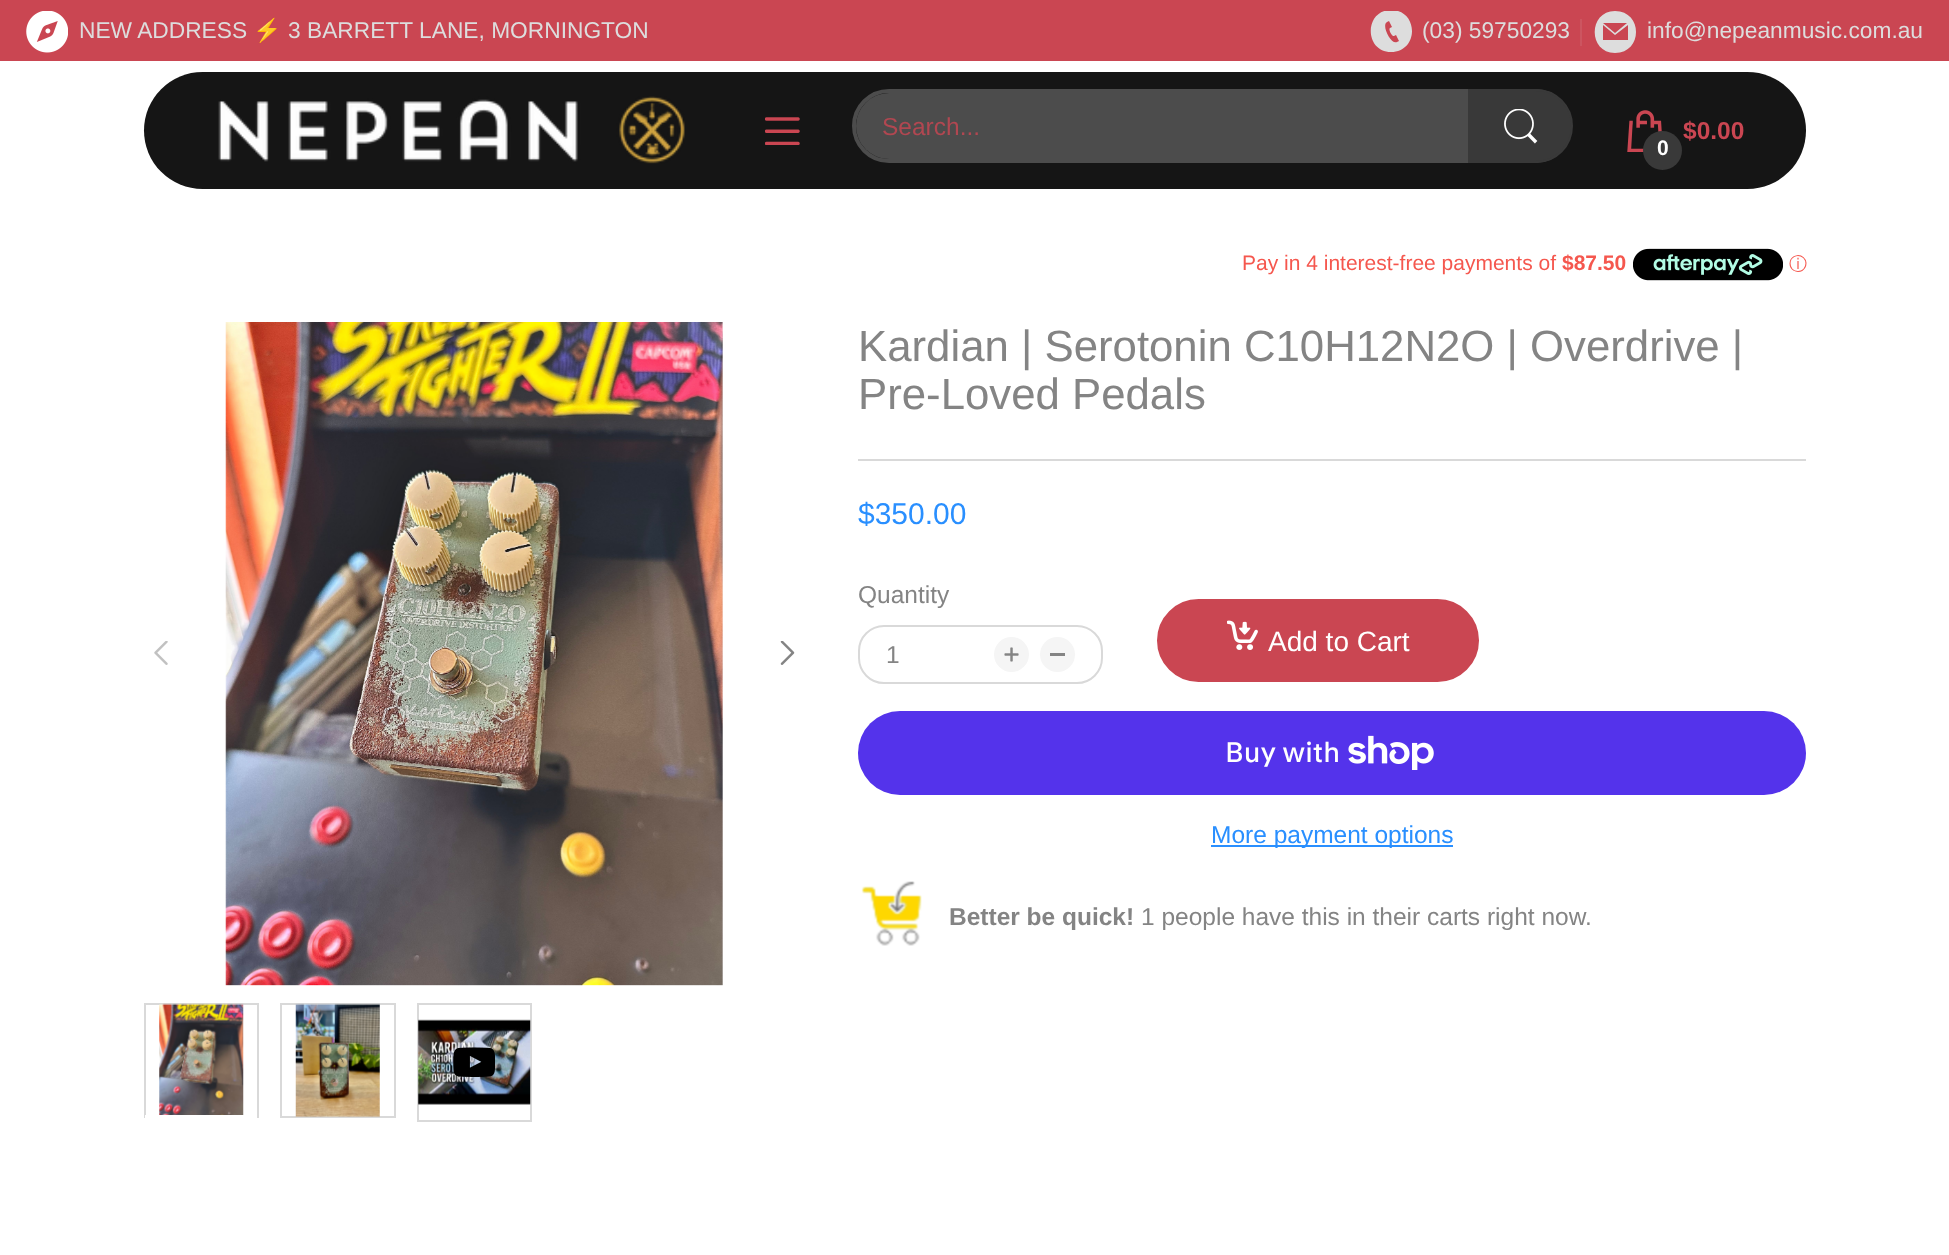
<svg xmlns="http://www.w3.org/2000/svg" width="1949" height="1255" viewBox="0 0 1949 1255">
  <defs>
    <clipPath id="clip1"><path d="M1370 11h42v42H1370z"/></clipPath>
  </defs>
  <rect width="100%" height="100%" fill="#fff"/>
  <path d="M0 0h1949v61H0z" fill="#ca4652"/>
  <image x="26" y="11" width="42" height="42" href="img/1.png"/>
  <g clip-path="url(#clip1)">
    <path d="M1391 10C1364 10 1364 52 1391 52C1419 52 1419 10 1391 10ZM1397 42C1391 45 1381 25 1387 22L1389 21L1392 27L1390 28C1388 29 1392 37 1394 36L1396 35L1399 41Z" fill="#ddd"/>
  </g>
  <path d="M1580 19h2v27H1580z" fill="#cc5560"/>
  <path d="M1615 11C1588 11 1588 53 1615 53C1643 53 1643 11 1615 11ZM1627 23L1615 33L1603 23ZM1628 40H1603V25L1615 35L1628 25Z" fill="#ddd"/>
  <rect x="144" y="72" width="1662" height="117" rx="58.5" fill="#151515"/>
  <image x="218" y="96" width="467" height="68" href="img/2.png"/>
  <image x="765" y="117" width="35" height="28" href="img/3.png"/>
  <rect x="854" y="91" width="716" height="70" rx="35" fill="none" stroke="#4c4c4c" stroke-width="4"/>
  <rect x="856" y="93" width="712" height="66" rx="33" fill="#4c4c4c"/>
  <path d="M1469 90H1536C1556 90 1572 106 1572 126C1572 146 1556 162 1536 162H1469Z" fill="#393939" stroke="#393939" stroke-width="2"/>
  <image x="1504" y="109" width="34" height="35" href="img/4.png"/>
  <image x="1627" y="110" width="35" height="42" href="img/5.png"/>
  <circle cx="1662.5" cy="150.5" r="19.5" fill="#393939"/>
  <image x="1633" y="248" width="150" height="33" href="img/6.png"/>
  <image x="225" y="322" width="498" height="664" href="img/7.png"/>
  <image x="154" y="641" width="14" height="24" href="img/8.png"/>
  <image x="780" y="641" width="15" height="24" href="img/9.png"/>
  <path d="M145 1004h113v113H145z" fill="none" stroke="#d9d9d9" stroke-width="2"/>
  <image x="159" y="1003" width="85" height="112" href="img/10.png"/>
  <path d="M145 1115h112v3H145z" fill="#fff"/>
  <path d="M281 1004h114v113H281z" fill="none" stroke="#d9d9d9" stroke-width="2"/>
  <image x="295" y="1003" width="85" height="114" href="img/11.png"/>
  <path d="M418 1004h113v117H418z" fill="none" stroke="#d9d9d9" stroke-width="2"/>
  <image x="418" y="1019" width="113" height="86" href="img/12.png"/>
  <image x="453" y="1047" width="42" height="30" href="img/13.png"/>
  <path d="M858 459h948v2H858z" fill="#d9d9d9"/>
  <rect x="859" y="626" width="243" height="57" rx="25" fill="none" stroke="#d9d9d9" stroke-width="2"/>
  <circle cx="1011.5" cy="654.5" r="17.5" fill="#f5f5f5"/>
  <image x="1004" y="647" width="15" height="15" href="img/14.png"/>
  <circle cx="1057.5" cy="654.5" r="17.5" fill="#f5f5f5"/>
  <path d="M1050 653h15v3H1050z" fill="#848484"/>
  <rect x="1156" y="598" width="324" height="85" rx="42.5" fill="#ca4652" stroke="#fff" stroke-width="2"/>
  <image x="1227" y="620" width="31" height="30" href="img/15.png"/>
  <rect x="858" y="711" width="948" height="84" rx="42" fill="#5433eb"/>
  <image x="1348" y="735" width="86" height="35" href="img/16.png"/>
  <path d="M1211 845h242v2H1211z" fill="#298fff"/>
  <image x="861" y="881" width="61" height="65" href="img/17.png"/>
  <text x="79" y="38" font-family="Liberation Sans" font-size="22.75" fill="#ddd">NEW ADDRESS</text>
  <text x="253" y="38" font-family="Noto Color Emoji" font-size="22.75" fill="#ddd">⚡</text>
  <g font-family="Liberation Sans" font-size="22.75" fill="#ddd">
    <text x="288" y="38">3 BARRETT LANE, MORNINGTON</text>
    <text x="1422" y="38">(03) 59750293</text>
    <text x="1647" y="38">info@nepeanmusic.com.au</text>
  </g>
  <text x="882" y="135" font-family="Liberation Sans" font-size="24.5" fill="#b14751">Search...</text>
  <text x="1683" y="139" font-family="Liberation Sans" font-size="24.5" font-weight="bold" fill="#ca4652">$0.00</text>
  <text x="1657" y="155" font-family="Liberation Sans" font-size="21" font-weight="bold" fill="#fff">0</text>
  <text x="1242" y="270" font-family="Liberation Sans" font-size="21" fill="#f5574e">Pay in 4 interest-free payments of</text>
  <text x="1562" y="270" font-family="Liberation Sans" font-size="21" font-weight="bold" fill="#f5574e">$87.50</text>
  <text x="1789" y="270" font-family="WenQuanYi Zen Hei" font-size="18" font-weight="500" fill="#f5574e">ⓘ</text>
  <g font-family="Liberation Sans" font-size="43.75" fill="#848484">
    <text x="858" y="361">Kardian | Serotonin C10H12N2O | Overdrive |</text>
    <text x="858" y="409">Pre-Loved Pedals</text>
  </g>
  <text x="858" y="524" font-family="Liberation Sans" font-size="30" fill="#298fff">$350.00</text>
  <g font-family="Liberation Sans" font-size="24.5" fill="#848484">
    <text x="858" y="603">Quantity</text>
    <text x="886" y="663">1</text>
  </g>
  <text x="1268" y="651" font-family="Liberation Sans" font-size="28" fill="#fff">Add to Cart</text>
  <text x="1225" y="762" font-family="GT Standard" font-size="28" font-weight="500" fill="#fff">Buy with</text>
  <text x="1211" y="843" font-family="Liberation Sans" font-size="24.5" fill="#298fff">More payment options</text>
  <text x="949" y="925" font-family="Liberation Sans" font-size="24.5" font-weight="bold" fill="#848484">Better be quick!</text>
  <text x="1141" y="925" font-family="Liberation Sans" font-size="24.5" fill="#848484">1 people have this in their carts right now.</text>
</svg>
